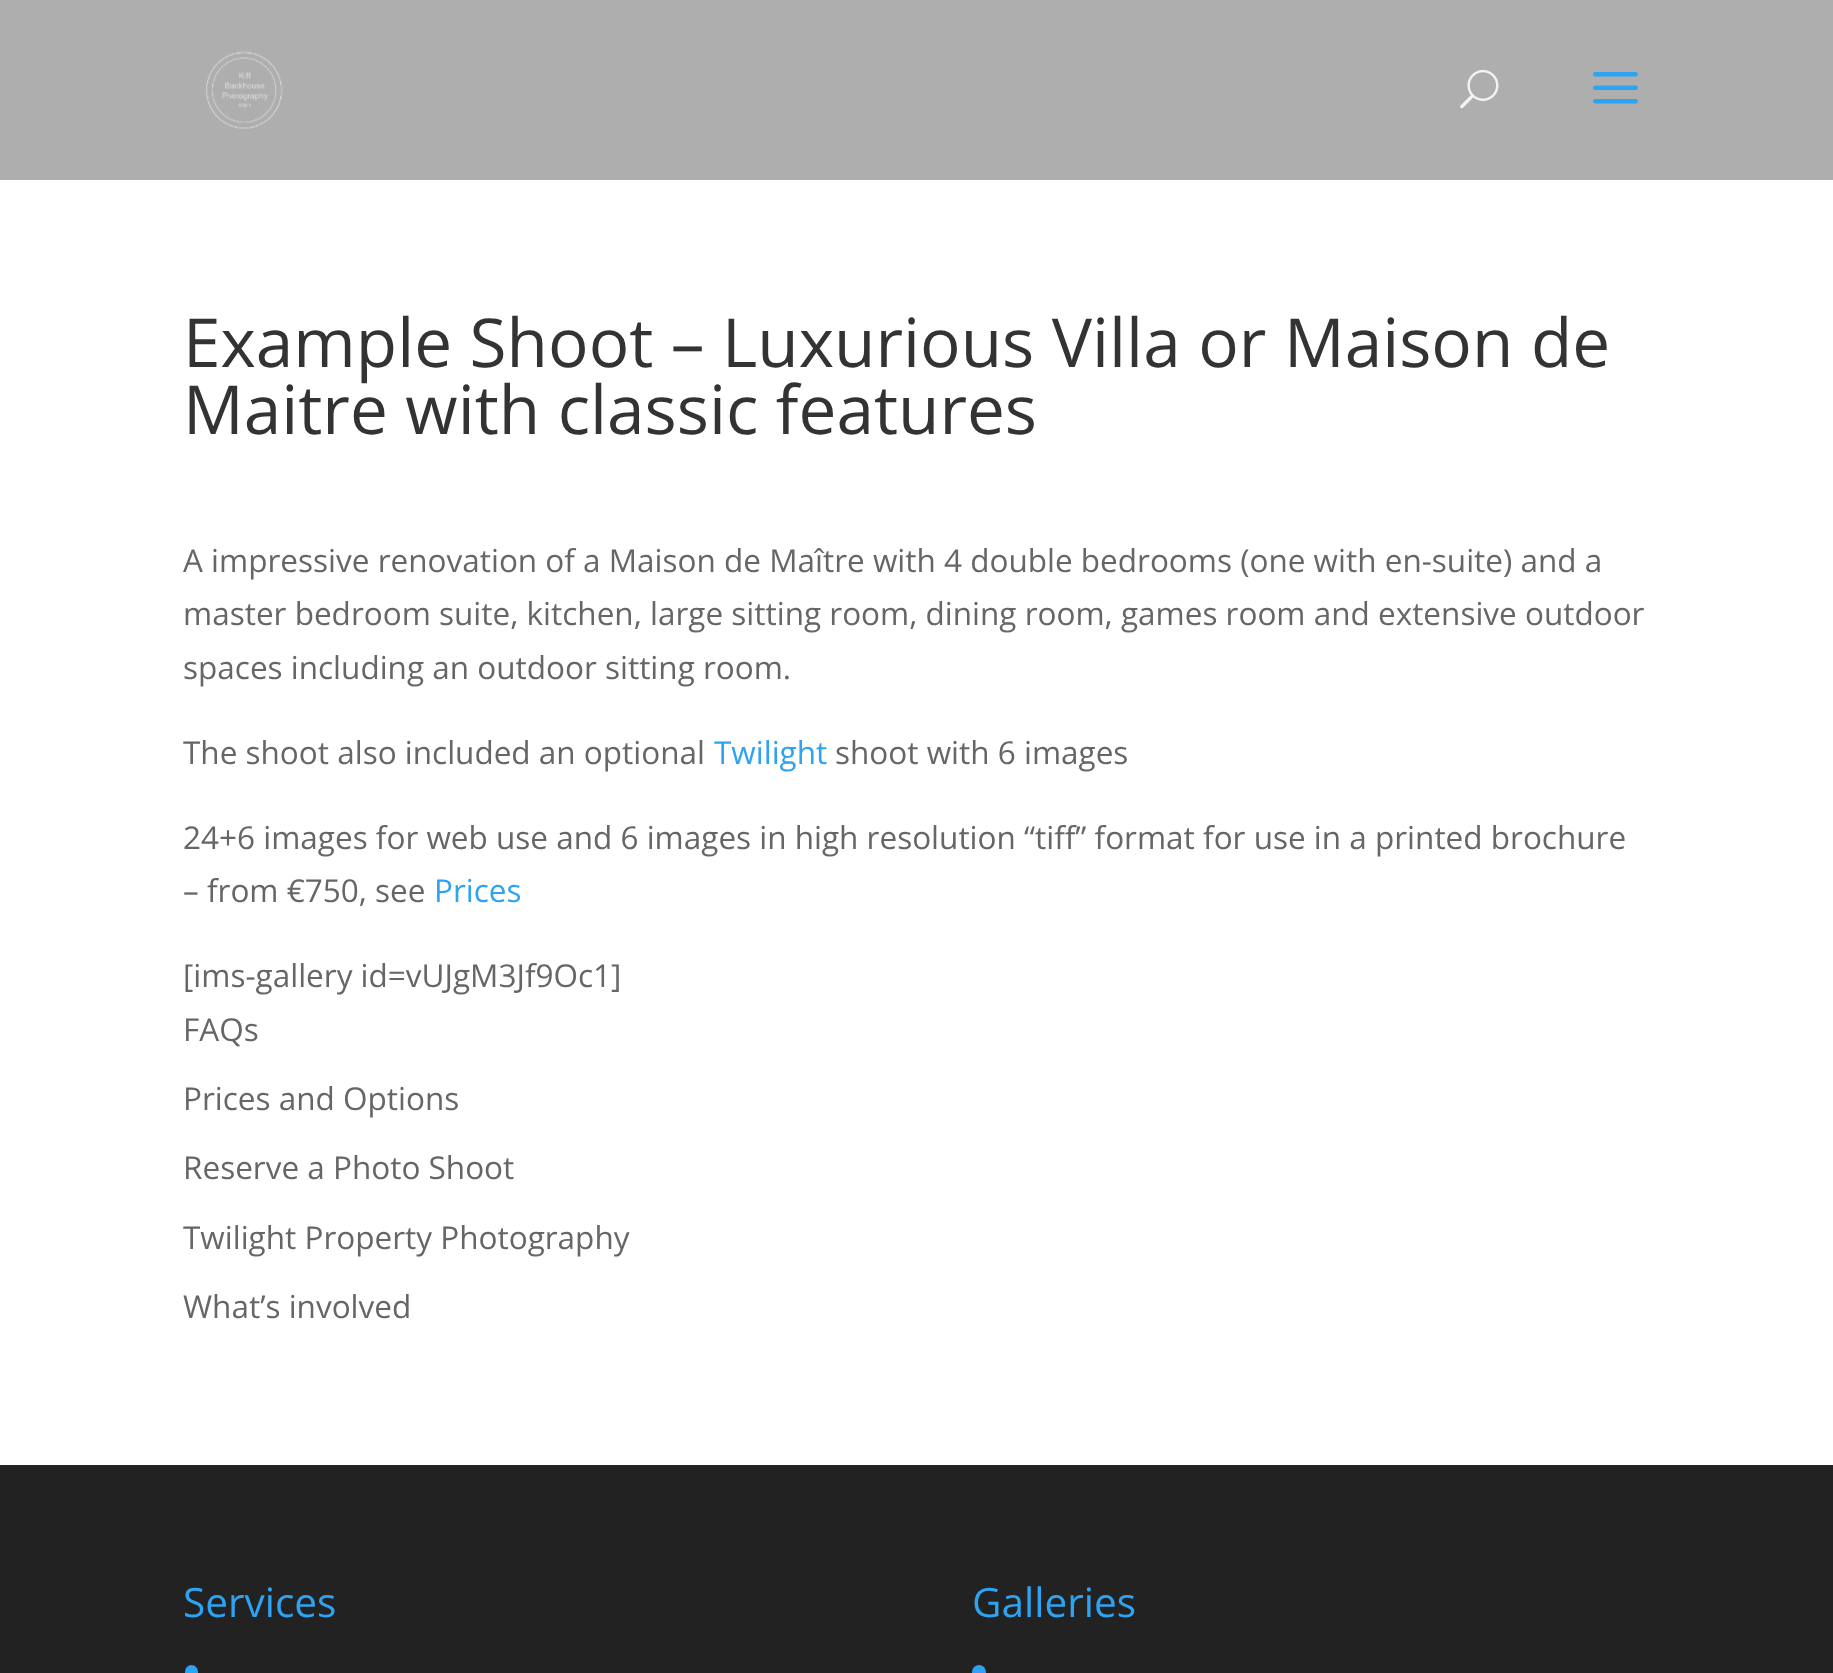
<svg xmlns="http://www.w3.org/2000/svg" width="1833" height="1673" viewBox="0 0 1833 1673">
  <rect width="100%" height="100%" fill="#fff"/>
  <path d="M0 0h1833v180H0z" fill="#aeaeae"/>
  <image x="206" y="51" width="77" height="78" href="img/1.png"/>
  <image x="1460" y="69" width="39" height="40" href="img/2.png"/>
  <image x="1593" y="72" width="45" height="32" href="img/3.png"/>
  <path d="M0 1465h1833v208H0z" fill="#222"/>
  <rect x="185" y="1665" width="13" height="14" rx="6.5" fill="#2ea3f2"/>
  <circle cx="979" cy="1672" r="7" fill="#2ea3f2"/>
  <g font-family="Open Sans" font-size="67.5" fill="#333">
    <text x="183" y="367">Example Shoot – Luxurious Villa or Maison de</text>
    <text x="183" y="434">Maitre with classic features</text>
  </g>
  <g font-family="Open Sans" font-size="31.5" fill="#666">
    <text x="183" y="572">A impressive renovation of a Maison de Maître with 4 double bedrooms (one with en-suite) and a</text>
    <text x="183" y="625">master bedroom suite, kitchen, large sitting room, dining room, games room and extensive outdoor</text>
    <text x="183" y="679">spaces including an outdoor sitting room.</text>
    <text x="183" y="764">The shoot also included an optional</text>
  </g>
  <text x="714" y="764" font-family="Open Sans" font-size="31.5" fill="#2ea3f2">Twilight</text>
  <g font-family="Open Sans" font-size="31.5" fill="#666">
    <text x="835" y="764">shoot with 6 images</text>
    <text x="183" y="849">24+6 images for web use and 6 images in high resolution “tiff” format for use in a printed brochure</text>
    <text x="183" y="902">– from €750, see</text>
  </g>
  <text x="434" y="902" font-family="Open Sans" font-size="31.5" fill="#2ea3f2">Prices</text>
  <g font-family="Open Sans" font-size="31.5" fill="#666">
    <text x="183" y="987">[ims-gallery id=vUJgM3Jf9Oc1]</text>
    <text x="183" y="1041">FAQs</text>
    <text x="183" y="1110">Prices and Options</text>
    <text x="183" y="1179">Reserve a Photo Shoot</text>
    <text x="183" y="1249">Twilight Property Photography</text>
    <text x="183" y="1318">What’s involved</text>
  </g>
  <g font-family="Open Sans" font-size="40.5" fill="#2ea3f2">
    <text x="183" y="1617">Services</text>
    <text x="972" y="1617">Galleries</text>
  </g>
</svg>
